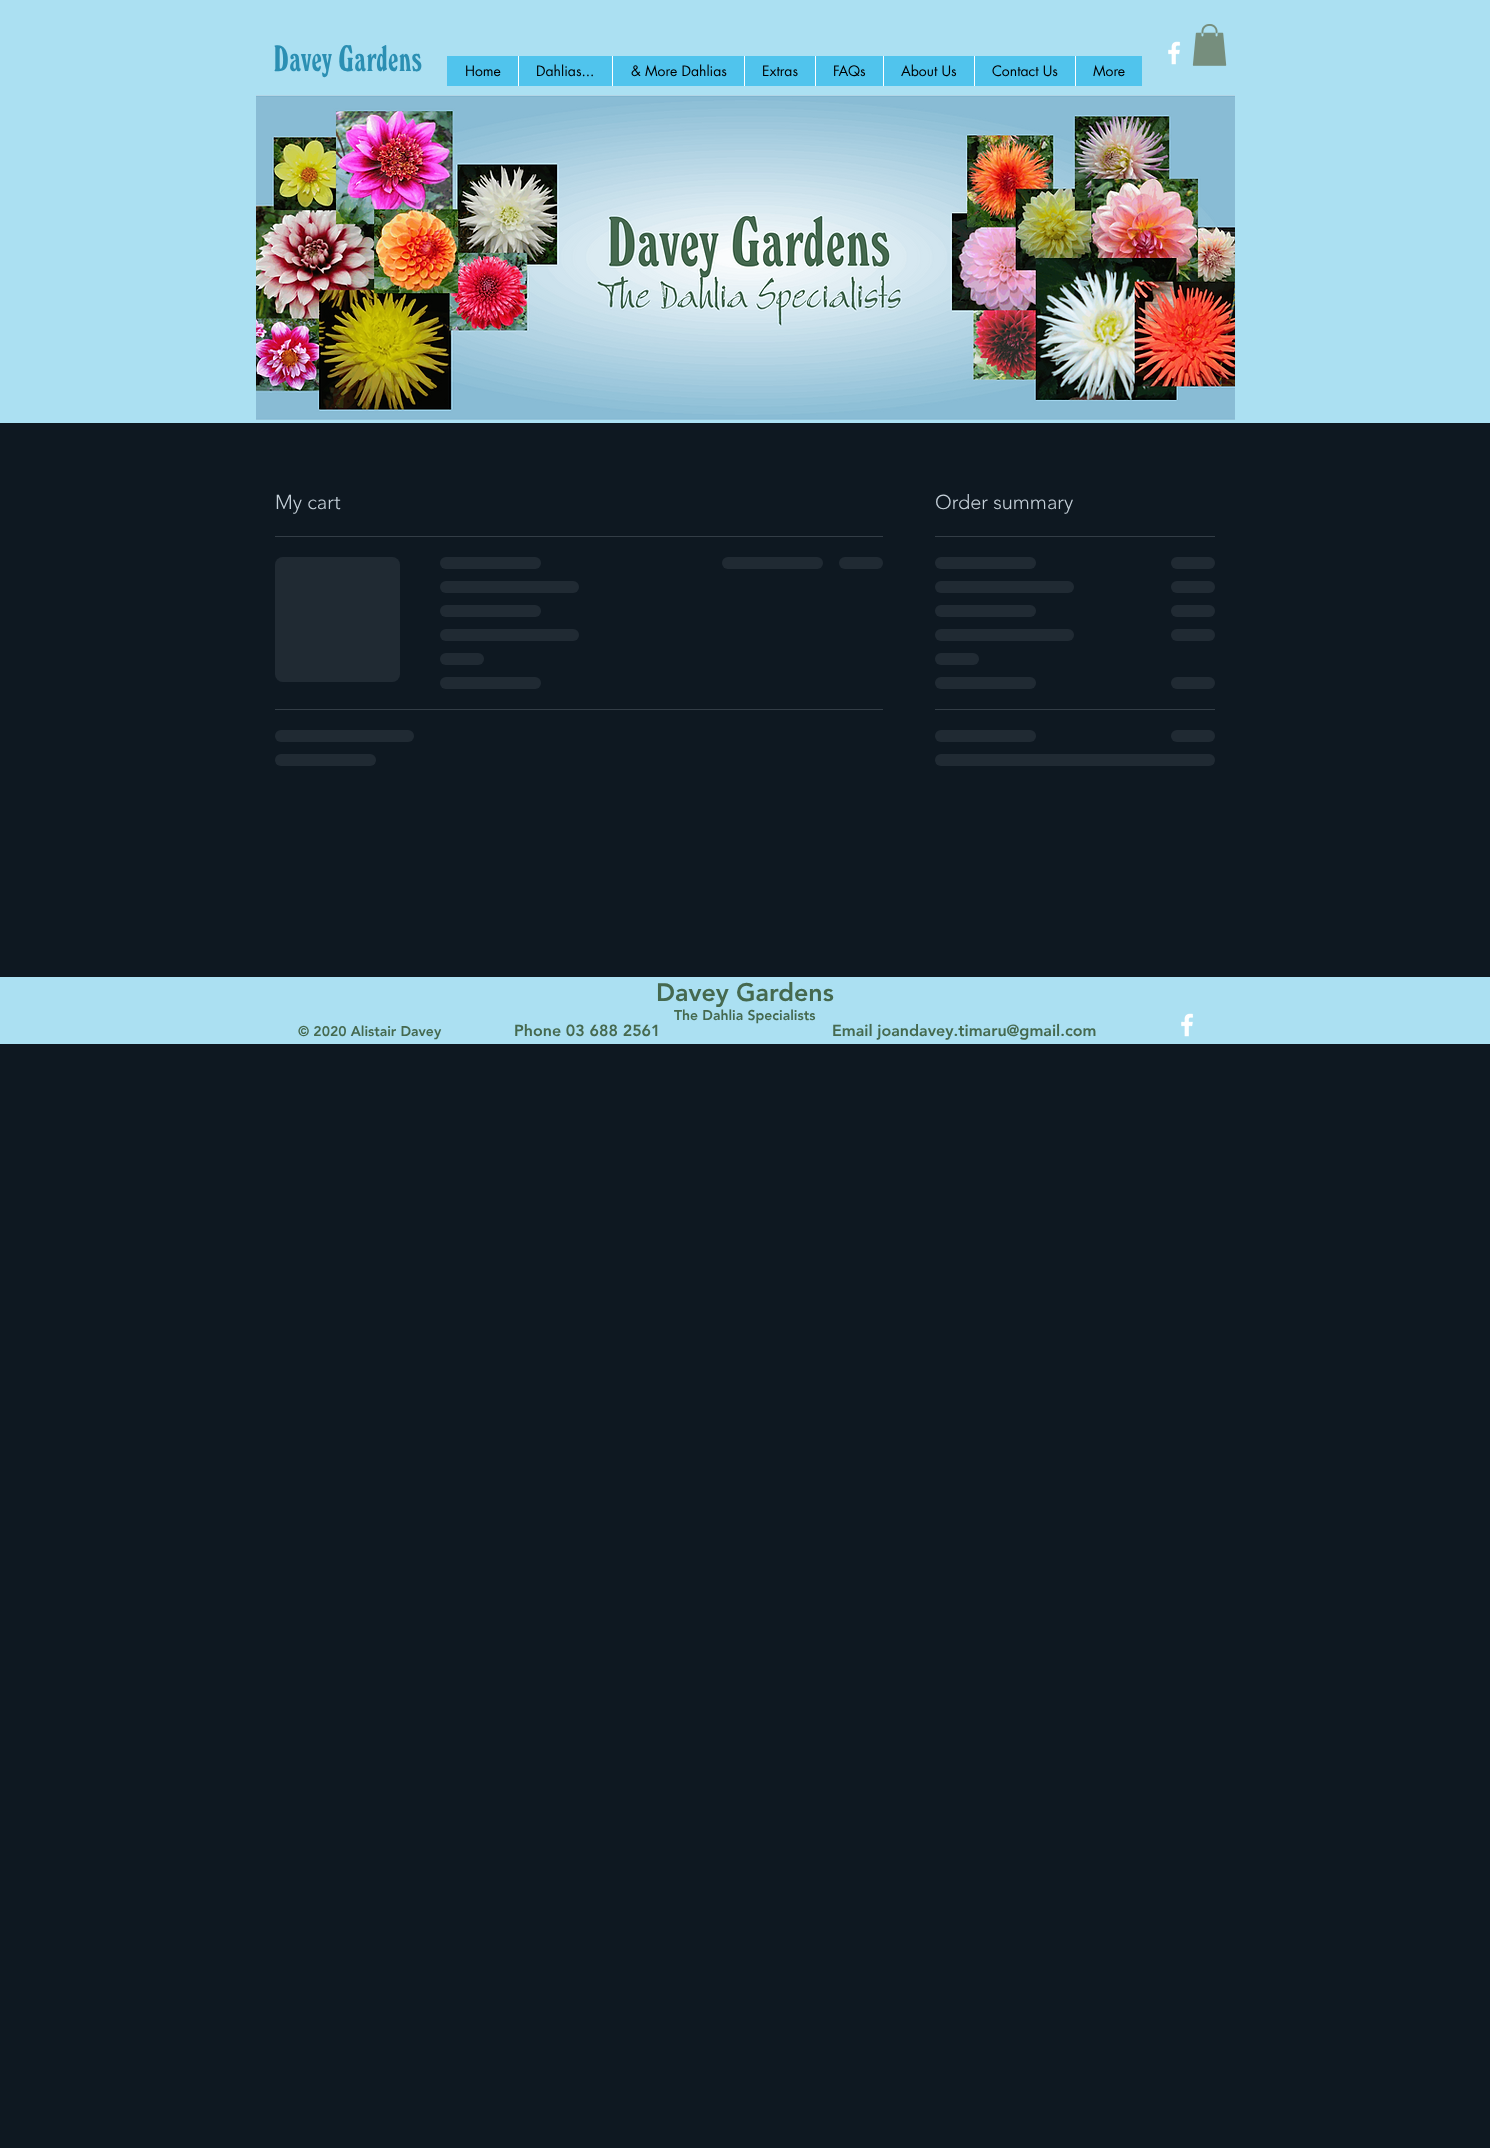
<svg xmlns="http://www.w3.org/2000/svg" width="1490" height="2148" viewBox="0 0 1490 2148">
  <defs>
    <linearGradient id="g1" gradientUnits="userSpaceOnUse" x1="275" y1="620" x2="775" y2="620"><stop offset="0.25" stop-color="#202a33"/><stop offset="0.37" stop-color="#333d46"/><stop offset="0.63" stop-color="#202a33"/></linearGradient>
    <linearGradient id="g2" gradientUnits="userSpaceOnUse" x1="440" y1="563" x2="844" y2="563"><stop offset="0.25" stop-color="#202a33"/><stop offset="0.37" stop-color="#333d46"/><stop offset="0.63" stop-color="#202a33"/></linearGradient>
    <linearGradient id="g3" gradientUnits="userSpaceOnUse" x1="440" y1="587" x2="996" y2="587"><stop offset="0.25" stop-color="#202a33"/><stop offset="0.37" stop-color="#333d46"/><stop offset="0.63" stop-color="#202a33"/></linearGradient>
    <linearGradient id="g4" gradientUnits="userSpaceOnUse" x1="440" y1="611" x2="844" y2="611"><stop offset="0.25" stop-color="#202a33"/><stop offset="0.37" stop-color="#333d46"/><stop offset="0.63" stop-color="#202a33"/></linearGradient>
    <linearGradient id="g5" gradientUnits="userSpaceOnUse" x1="440" y1="635" x2="996" y2="635"><stop offset="0.25" stop-color="#202a33"/><stop offset="0.37" stop-color="#333d46"/><stop offset="0.63" stop-color="#202a33"/></linearGradient>
    <linearGradient id="g6" gradientUnits="userSpaceOnUse" x1="440" y1="659" x2="616" y2="659"><stop offset="0.25" stop-color="#202a33"/><stop offset="0.37" stop-color="#333d46"/><stop offset="0.63" stop-color="#202a33"/></linearGradient>
    <linearGradient id="g7" gradientUnits="userSpaceOnUse" x1="440" y1="683" x2="844" y2="683"><stop offset="0.25" stop-color="#202a33"/><stop offset="0.37" stop-color="#333d46"/><stop offset="0.63" stop-color="#202a33"/></linearGradient>
    <linearGradient id="g8" gradientUnits="userSpaceOnUse" x1="722" y1="563" x2="1126" y2="563"><stop offset="0.25" stop-color="#202a33"/><stop offset="0.37" stop-color="#333d46"/><stop offset="0.63" stop-color="#202a33"/></linearGradient>
    <linearGradient id="g9" gradientUnits="userSpaceOnUse" x1="839" y1="563" x2="1015" y2="563"><stop offset="0.25" stop-color="#202a33"/><stop offset="0.37" stop-color="#333d46"/><stop offset="0.63" stop-color="#202a33"/></linearGradient>
    <linearGradient id="g10" gradientUnits="userSpaceOnUse" x1="275" y1="736" x2="831" y2="736"><stop offset="0.25" stop-color="#202a33"/><stop offset="0.37" stop-color="#333d46"/><stop offset="0.63" stop-color="#202a33"/></linearGradient>
    <linearGradient id="g11" gradientUnits="userSpaceOnUse" x1="275" y1="760" x2="679" y2="760"><stop offset="0.25" stop-color="#202a33"/><stop offset="0.37" stop-color="#333d46"/><stop offset="0.63" stop-color="#202a33"/></linearGradient>
    <linearGradient id="g12" gradientUnits="userSpaceOnUse" x1="935" y1="563" x2="1339" y2="563"><stop offset="0.25" stop-color="#202a33"/><stop offset="0.37" stop-color="#333d46"/><stop offset="0.63" stop-color="#202a33"/></linearGradient>
    <linearGradient id="g13" gradientUnits="userSpaceOnUse" x1="1171" y1="563" x2="1347" y2="563"><stop offset="0.25" stop-color="#202a33"/><stop offset="0.37" stop-color="#333d46"/><stop offset="0.63" stop-color="#202a33"/></linearGradient>
    <linearGradient id="g14" gradientUnits="userSpaceOnUse" x1="935" y1="587" x2="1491" y2="587"><stop offset="0.25" stop-color="#202a33"/><stop offset="0.37" stop-color="#333d46"/><stop offset="0.63" stop-color="#202a33"/></linearGradient>
    <linearGradient id="g15" gradientUnits="userSpaceOnUse" x1="1171" y1="587" x2="1347" y2="587"><stop offset="0.25" stop-color="#202a33"/><stop offset="0.37" stop-color="#333d46"/><stop offset="0.63" stop-color="#202a33"/></linearGradient>
    <linearGradient id="g16" gradientUnits="userSpaceOnUse" x1="935" y1="611" x2="1339" y2="611"><stop offset="0.25" stop-color="#202a33"/><stop offset="0.37" stop-color="#333d46"/><stop offset="0.63" stop-color="#202a33"/></linearGradient>
    <linearGradient id="g17" gradientUnits="userSpaceOnUse" x1="1171" y1="611" x2="1347" y2="611"><stop offset="0.25" stop-color="#202a33"/><stop offset="0.37" stop-color="#333d46"/><stop offset="0.63" stop-color="#202a33"/></linearGradient>
    <linearGradient id="g18" gradientUnits="userSpaceOnUse" x1="935" y1="635" x2="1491" y2="635"><stop offset="0.25" stop-color="#202a33"/><stop offset="0.37" stop-color="#333d46"/><stop offset="0.63" stop-color="#202a33"/></linearGradient>
    <linearGradient id="g19" gradientUnits="userSpaceOnUse" x1="1171" y1="635" x2="1347" y2="635"><stop offset="0.25" stop-color="#202a33"/><stop offset="0.37" stop-color="#333d46"/><stop offset="0.63" stop-color="#202a33"/></linearGradient>
    <linearGradient id="g20" gradientUnits="userSpaceOnUse" x1="935" y1="659" x2="1111" y2="659"><stop offset="0.25" stop-color="#202a33"/><stop offset="0.37" stop-color="#333d46"/><stop offset="0.63" stop-color="#202a33"/></linearGradient>
    <linearGradient id="g21" gradientUnits="userSpaceOnUse" x1="935" y1="683" x2="1339" y2="683"><stop offset="0.25" stop-color="#202a33"/><stop offset="0.37" stop-color="#333d46"/><stop offset="0.63" stop-color="#202a33"/></linearGradient>
    <linearGradient id="g22" gradientUnits="userSpaceOnUse" x1="1171" y1="683" x2="1347" y2="683"><stop offset="0.25" stop-color="#202a33"/><stop offset="0.37" stop-color="#333d46"/><stop offset="0.63" stop-color="#202a33"/></linearGradient>
    <linearGradient id="g23" gradientUnits="userSpaceOnUse" x1="935" y1="736" x2="1339" y2="736"><stop offset="0.25" stop-color="#202a33"/><stop offset="0.37" stop-color="#333d46"/><stop offset="0.63" stop-color="#202a33"/></linearGradient>
    <linearGradient id="g24" gradientUnits="userSpaceOnUse" x1="1171" y1="736" x2="1347" y2="736"><stop offset="0.25" stop-color="#202a33"/><stop offset="0.37" stop-color="#333d46"/><stop offset="0.63" stop-color="#202a33"/></linearGradient>
    <linearGradient id="g25" gradientUnits="userSpaceOnUse" x1="935" y1="760" x2="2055" y2="760"><stop offset="0.25" stop-color="#202a33"/><stop offset="0.37" stop-color="#333d46"/><stop offset="0.63" stop-color="#202a33"/></linearGradient>
  </defs>
  <rect width="100%" height="100%" fill="#0e1821"/>
  <path d="M0 0h1490v423H0z" fill="#abe0f2"/>
  <path d="M447 56h695v30H447z" fill="#50c4ed"/>
  <path d="M518 56h1v30H518z" fill="#fff"/>
  <path d="M612 56h1v30H612z" fill="#fff"/>
  <path d="M744 56h1v30H744z" fill="#fff"/>
  <path d="M815 56h1v30H815z" fill="#fff"/>
  <path d="M883 56h1v30H883z" fill="#fff"/>
  <path d="M974 56h1v30H974z" fill="#fff"/>
  <path d="M1075 56h1v30H1075z" fill="#fff"/>
  <image x="1168" y="41" width="13" height="24" href="img/1.png"/>
  <image x="1192" y="24" width="35" height="42" href="img/2.png"/>
  <image x="256" y="95" width="979" height="325" href="img/3.png"/>
  <path d="M275 536h608v1H275z" fill="#333d46"/>
  <rect x="275" y="557" width="125" height="125" rx="8" fill="url(#g1)"/>
  <rect x="440" y="557" width="101" height="12" rx="6" fill="url(#g2)"/>
  <rect x="440" y="581" width="139" height="12" rx="6" fill="url(#g3)"/>
  <rect x="440" y="605" width="101" height="12" rx="6" fill="url(#g4)"/>
  <rect x="440" y="629" width="139" height="12" rx="6" fill="url(#g5)"/>
  <rect x="440" y="653" width="44" height="12" rx="6" fill="url(#g6)"/>
  <rect x="440" y="677" width="101" height="12" rx="6" fill="url(#g7)"/>
  <rect x="722" y="557" width="101" height="12" rx="6" fill="url(#g8)"/>
  <rect x="839" y="557" width="44" height="12" rx="6" fill="url(#g9)"/>
  <path d="M275 709h608v1H275z" fill="#333d46"/>
  <rect x="275" y="730" width="139" height="12" rx="6" fill="url(#g10)"/>
  <rect x="275" y="754" width="101" height="12" rx="6" fill="url(#g11)"/>
  <path d="M935 536h280v1H935z" fill="#333d46"/>
  <rect x="935" y="557" width="101" height="12" rx="6" fill="url(#g12)"/>
  <rect x="1171" y="557" width="44" height="12" rx="6" fill="url(#g13)"/>
  <rect x="935" y="581" width="139" height="12" rx="6" fill="url(#g14)"/>
  <rect x="1171" y="581" width="44" height="12" rx="6" fill="url(#g15)"/>
  <rect x="935" y="605" width="101" height="12" rx="6" fill="url(#g16)"/>
  <rect x="1171" y="605" width="44" height="12" rx="6" fill="url(#g17)"/>
  <rect x="935" y="629" width="139" height="12" rx="6" fill="url(#g18)"/>
  <rect x="1171" y="629" width="44" height="12" rx="6" fill="url(#g19)"/>
  <rect x="935" y="653" width="44" height="12" rx="6" fill="url(#g20)"/>
  <rect x="935" y="677" width="101" height="12" rx="6" fill="url(#g21)"/>
  <rect x="1171" y="677" width="44" height="12" rx="6" fill="url(#g22)"/>
  <path d="M935 709h280v1H935z" fill="#333d46"/>
  <rect x="935" y="730" width="101" height="12" rx="6" fill="url(#g23)"/>
  <rect x="1171" y="730" width="44" height="12" rx="6" fill="url(#g24)"/>
  <rect x="935" y="754" width="280" height="12" rx="6" fill="url(#g25)"/>
  <path d="M0 977h1490v67H0z" fill="#abe0f2"/>
  <image x="1181" y="1013" width="13" height="24" href="img/1.png"/>
  <text x="273" y="71" font-family="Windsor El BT" font-size="36" fill="#2b8fb3">Davey Gardens</text>
  <g font-family="futura" font-size="14" fill="#000">
    <text x="465" y="76">Home</text>
    <text x="536" y="76">Dahlias...</text>
    <text x="631" y="76">&amp; More Dahlias</text>
    <text x="762" y="76">Extras</text>
    <text x="833" y="76">FAQs</text>
    <text x="901" y="76">About Us</text>
    <text x="992" y="76">Contact Us</text>
    <text x="1093" y="76">More</text>
  </g>
  <g font-family="'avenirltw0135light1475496'" font-size="20" font-weight="300" fill="#c5d0d9">
    <text x="275" y="509">My cart</text>
    <text x="935" y="509">Order summary</text>
  </g>
  <text x="298" y="1036" font-family="'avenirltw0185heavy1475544'" font-size="14" font-weight="900" fill="#45694f">© 2020 Alistair Davey</text>
  <text x="514" y="1036" font-family="'avenirltw0185heavy1475544'" font-size="16" font-weight="900" fill="#45694f">Phone 03 688 2561</text>
  <text x="656" y="1001" font-family="'avenirltw0185heavy1475544'" font-size="25" font-weight="900" fill="#45694f">Davey Gardens</text>
  <text x="674" y="1020" font-family="'avenirltw0185heavy1475544'" font-size="14" font-weight="900" fill="#45694f">The Dahlia Specialists</text>
  <text x="832" y="1036" font-family="'avenirltw0185heavy1475544'" font-size="16" font-weight="900" fill="#45694f">Email joandavey.timaru@gmail.com</text>
</svg>
